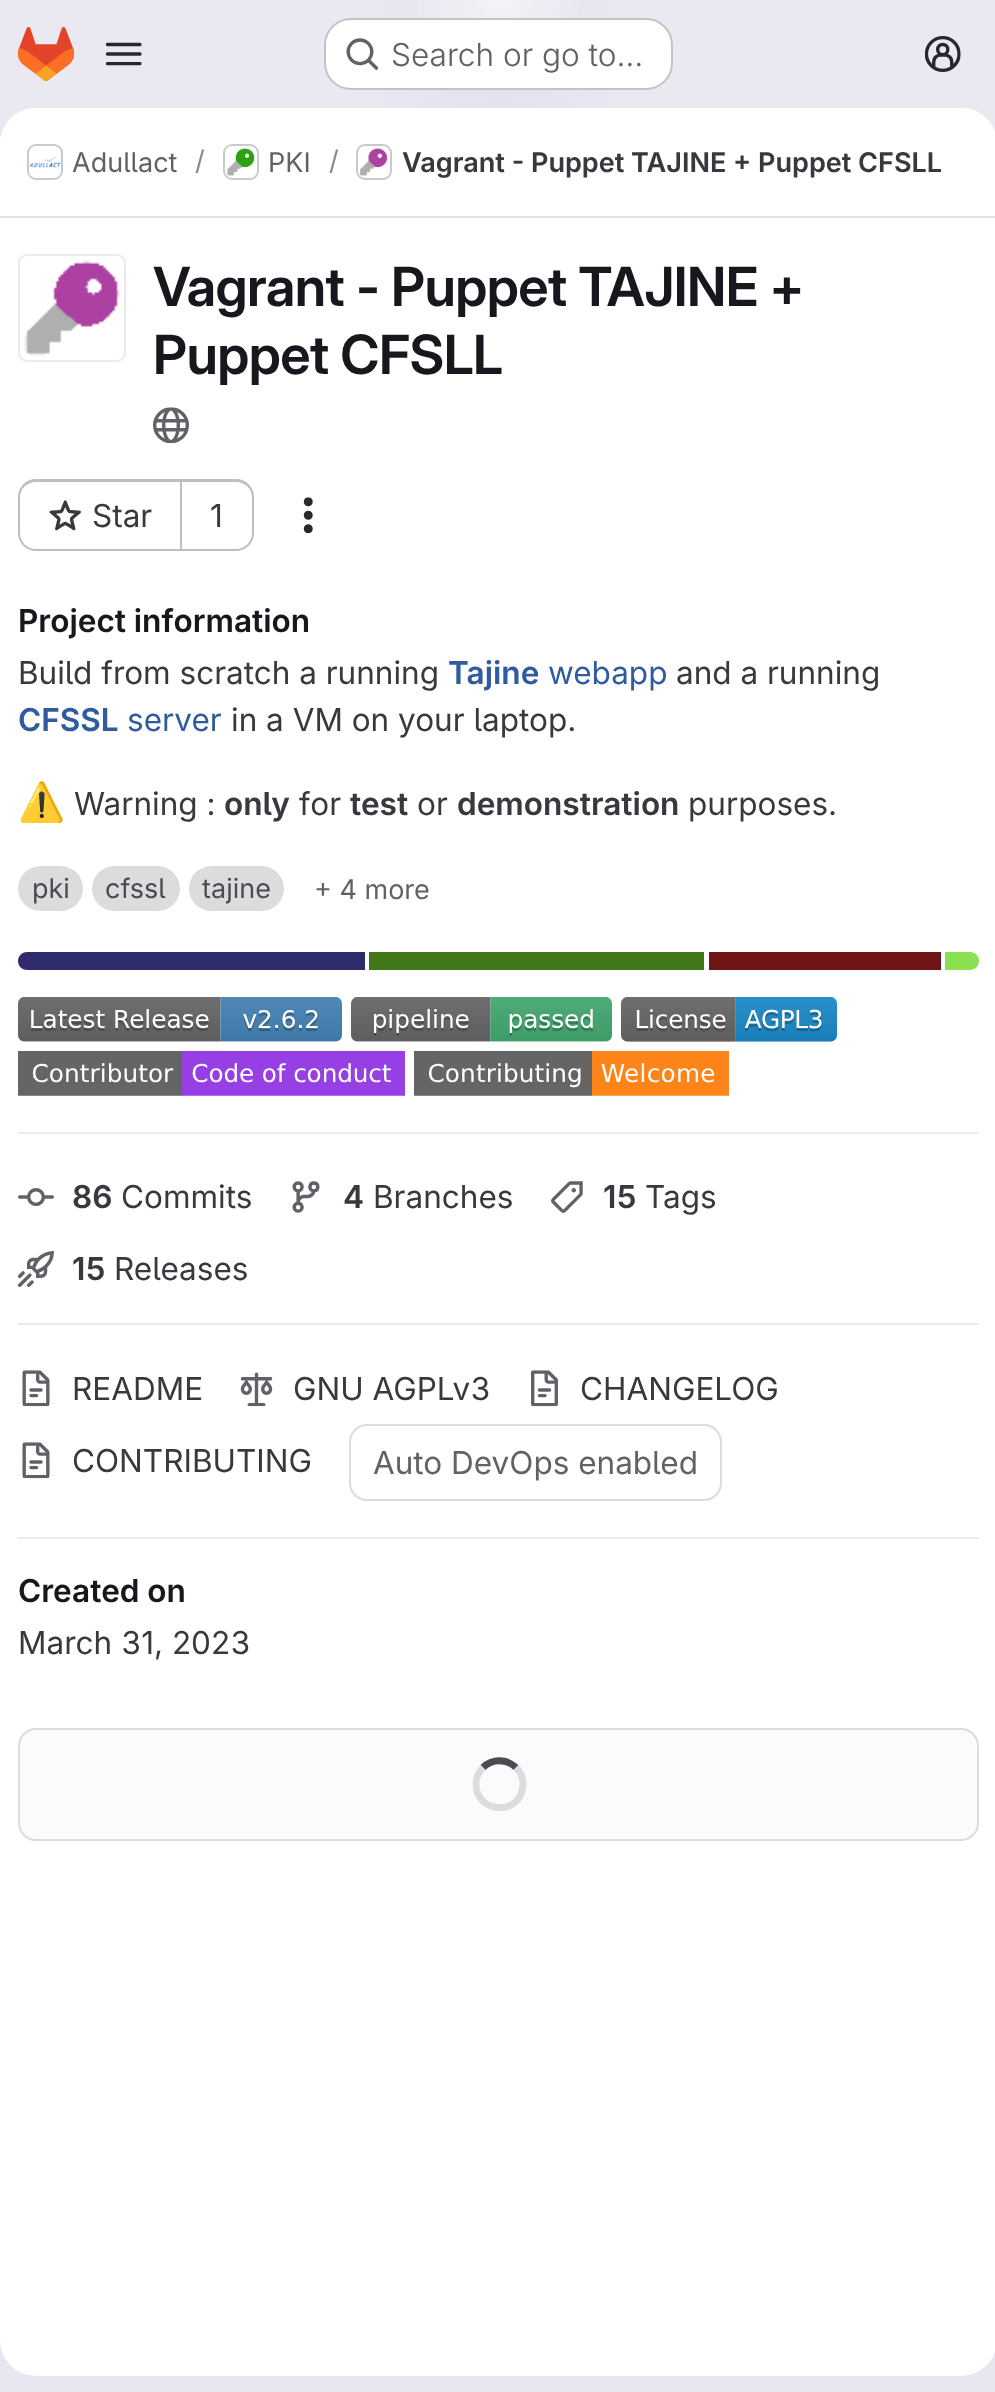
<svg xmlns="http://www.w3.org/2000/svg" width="995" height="2392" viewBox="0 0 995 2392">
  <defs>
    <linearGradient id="g1" gradientUnits="userSpaceOnUse" x1="718" y1="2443" x2="279" y2="-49"><stop offset="0" stop-color="#e8e6f0"/><stop offset="0.7" stop-color="#eae9f2"/></linearGradient>
    <radialGradient id="g2" gradientUnits="userSpaceOnUse" cx="0" cy="0" r="1" gradientTransform="matrix(498 0 0 2394 498 0)"><stop offset="0" stop-color="#e4e2ed"/><stop offset="0.32" stop-color="#e4e2ed" stop-opacity="0"/></radialGradient>
    <radialGradient id="g3" gradientUnits="userSpaceOnUse" cx="0" cy="0" r="1" gradientTransform="matrix(498 0 0 2394 498 0)"><stop offset="0" stop-color="#e4e2ec"/><stop offset="0.23" stop-color="#e4e2ec" stop-opacity="0"/></radialGradient>
    <radialGradient id="g4" gradientUnits="userSpaceOnUse" cx="498" cy="0" r="2445"><stop offset="0" stop-color="#fff" stop-opacity="0.6"/><stop offset="0.04" stop-color="#fff" stop-opacity="0"/></radialGradient>
  </defs>
  <rect width="100%" height="100%" fill="#fff"/>
  <path d="M0 0h995v2392H0z" fill="url(#g1)"/>
  <path d="M384 0h228v108H384z" fill="url(#g2)"/>
  <path d="M444 14h108v91H444z" fill="url(#g3)"/>
  <path d="M417 0h162v83H417z" fill="url(#g4)"/>
  <image x="18" y="27" width="56" height="54" href="img/1.png"/>
  <image x="105" y="42" width="37" height="24" href="img/2.png"/>
  <rect x="324" y="18" width="349" height="72" rx="27" fill="#fff"/>
  <rect x="325" y="19" width="347" height="70" rx="26" fill="none" stroke="#0505063d" stroke-width="2"/>
  <image x="346" y="38" width="33" height="32" href="img/3.png"/>
  <image x="924" y="36" width="37" height="36" href="img/4.png"/>
  <rect y="108" width="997" height="2268" rx="36" fill="#fff"/>
  <path d="M36 108H961C981 108 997 124 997 144V218H0V144C0 124 16 108 36 108Z" fill="#fff"/>
  <path d="M0 216h995v2H0z" fill="#e1dfec"/>
  <rect x="28" y="145" width="34" height="34" rx="8" fill="none" stroke="#dcdcde" stroke-width="2"/>
  <image x="29" y="156" width="32" height="12" href="img/5.png"/>
  <rect x="28" y="145" width="34" height="34" rx="8" fill="none" stroke="#05050614" stroke-width="2"/>
  <rect x="224" y="145" width="34" height="34" rx="8" fill="none" stroke="#dcdcde" stroke-width="2"/>
  <image x="227" y="148" width="28" height="28" href="img/6.png"/>
  <rect x="224" y="145" width="34" height="34" rx="8" fill="none" stroke="#05050614" stroke-width="2"/>
  <rect x="357" y="145" width="34" height="34" rx="8" fill="none" stroke="#dcdcde" stroke-width="2"/>
  <image x="359" y="148" width="29" height="28" href="img/7.png"/>
  <rect x="357" y="145" width="34" height="34" rx="8" fill="none" stroke="#05050614" stroke-width="2"/>
  <image x="24" y="260" width="96" height="96" href="img/8.png"/>
  <rect x="19" y="255" width="106" height="106" rx="8" fill="none" stroke="#ebebeb" stroke-width="2"/>
  <image x="153" y="407" width="36" height="37" href="img/9.png"/>
  <path d="M36 479H180V551H36C26 551 18 543 18 533V497C18 487 26 479 36 479ZM36 482H180V549H36C27 549 20 542 20 533V497C20 489 27 482 36 482Z" fill="#bfbfc3" fill-rule="evenodd"/>
  <image x="49" y="500" width="32" height="31" href="img/10.png"/>
  <path d="M182 479H236C246 479 254 487 254 497V533C254 543 246 551 236 551H182ZM182 482H236C245 482 252 489 252 497V533C252 542 245 549 236 549H182Z" fill="#bfbfc3" fill-rule="evenodd"/>
  <path d="M180 479h2v72H180z" fill="#bfbfc3"/>
  <image x="303" y="497" width="10" height="37" href="img/11.png"/>
  <path d="M18 1132h961v2H18z" fill="#ececef"/>
  <rect x="18" y="866" width="65" height="45" rx="22.5" fill="#dcdcde"/>
  <rect x="92" y="866" width="88" height="45" rx="22.5" fill="#dcdcde"/>
  <rect x="189" y="866" width="95" height="45" rx="22.5" fill="#dcdcde"/>
  <path d="M27 952H365V970H27C22 970 18 966 18 961C18 956 22 952 27 952Z" fill="#302b6d"/>
  <path d="M369 952h335v18H369z" fill="#427819"/>
  <path d="M709 952h232v18H709z" fill="#701516"/>
  <path d="M945 952H970C975 952 979 956 979 961C979 966 975 970 970 970H945Z" fill="#89e051"/>
  <image x="18" y="997" width="324" height="45" href="img/12.png"/>
  <image x="351" y="997" width="261" height="45" href="img/13.png"/>
  <image x="621" y="997" width="216" height="45" href="img/14.png"/>
  <image x="18" y="1051" width="387" height="45" href="img/15.png"/>
  <image x="414" y="1051" width="315" height="45" href="img/16.png"/>
  <path d="M18 1323h961v2H18z" fill="#ececef"/>
  <image x="18" y="1188" width="36" height="18" href="img/17.png"/>
  <image x="292" y="1181" width="28" height="32" href="img/18.png"/>
  <image x="551" y="1181" width="32" height="32" href="img/19.png"/>
  <image x="18" y="1251" width="36" height="36" href="img/20.png"/>
  <path d="M18 1537h961v2H18z" fill="#ececef"/>
  <image x="22" y="1370" width="28" height="37" href="img/21.png"/>
  <image x="240" y="1372" width="33" height="35" href="img/22.png"/>
  <image x="531" y="1370" width="27" height="37" href="img/23.png"/>
  <image x="22" y="1442" width="28" height="37" href="img/21.png"/>
  <rect x="350" y="1425" width="371" height="75" rx="17" fill="none" stroke="#dcdcde" stroke-width="2"/>
  <rect x="19" y="1729" width="959" height="111" rx="17" fill="#fbfafd" stroke="#dcdcde" stroke-width="2"/>
  <path d="M483 1767.5C492 1758.5 507 1758.5 516 1767.5" fill="none" stroke="#4c4b51" stroke-width="6.8"/>
  <path d="M516 1767.5C521.5 1773 524 1781 522.5 1789C517 1816.5 476 1812.5 476 1784C476 1778 478.5 1772 483 1767.5" fill="none" stroke="#dcdcde" stroke-width="6.8"/>
  <text x="391" y="66" font-family="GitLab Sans" font-size="31.5" font-weight="300" fill="#626168">Search or go to…</text>
  <text x="72" y="172" font-family="GitLab Sans" font-size="27" fill="#626168">Adullact</text>
  <text x="195" y="170" font-family="GitLab Sans" font-size="27" fill="#89888d">/</text>
  <text x="268" y="172" font-family="GitLab Sans" font-size="27" fill="#626168">PKI</text>
  <text x="329" y="170" font-family="GitLab Sans" font-size="27" fill="#89888d">/</text>
  <text x="402" y="172" font-family="'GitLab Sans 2'" font-size="27" font-weight="600" fill="#3a383f">Vagrant - Puppet TAJINE + Puppet CFSLL</text>
  <g font-family="GitLab Sans" font-size="54" font-weight="600" letter-spacing="-0.55" fill="#18171d">
    <text x="153" y="306">Vagrant - Puppet TAJINE +</text>
    <text x="153" y="374">Puppet CFSLL</text>
  </g>
  <g font-family="GitLab Sans" font-size="31.5" fill="#3a383f">
    <text x="92" y="527">Star</text>
    <text x="210" y="527">1</text>
  </g>
  <text x="18" y="632" font-family="'GitLab Sans 2'" font-size="31.5" font-weight="600" fill="#18171d">Project information</text>
  <text x="18" y="684" font-family="GitLab Sans" font-size="31.5" fill="#3a383f">Build from scratch a running</text>
  <text x="448" y="684" font-family="'GitLab Sans 2'" font-size="31.5" font-weight="600" fill="#2f5ca0">Tajine</text>
  <text x="548" y="684" font-family="GitLab Sans" font-size="31.5" fill="#2f5ca0">webapp</text>
  <text x="676" y="684" font-family="GitLab Sans" font-size="31.5" fill="#3a383f">and a running</text>
  <text x="18" y="731" font-family="'GitLab Sans 2'" font-size="31.5" font-weight="600" fill="#2f5ca0">CFSSL</text>
  <text x="127" y="731" font-family="GitLab Sans" font-size="31.5" fill="#2f5ca0">server</text>
  <text x="231" y="731" font-family="GitLab Sans" font-size="31.5" fill="#3a383f">in a VM on your laptop.</text>
  <text x="18" y="815" font-family="Noto Color Emoji" font-size="38" fill="#3a383f">⚠</text>
  <text x="74" y="815" font-family="GitLab Sans" font-size="31.5" fill="#3a383f">Warning :</text>
  <text x="224" y="815" font-family="'GitLab Sans 2'" font-size="31.5" font-weight="600" fill="#3a383f">only</text>
  <text x="299" y="815" font-family="GitLab Sans" font-size="31.5" fill="#3a383f">for</text>
  <text x="350" y="815" font-family="'GitLab Sans 2'" font-size="31.5" font-weight="600" fill="#3a383f">test</text>
  <text x="417" y="815" font-family="GitLab Sans" font-size="31.5" fill="#3a383f">or</text>
  <text x="457" y="815" font-family="'GitLab Sans 2'" font-size="31.5" font-weight="600" fill="#3a383f">demonstration</text>
  <text x="688" y="815" font-family="GitLab Sans" font-size="31.5" fill="#3a383f">purposes.</text>
  <g font-family="GitLab Sans" font-size="27" fill="#4c4b51">
    <text x="32" y="898">pki</text>
    <text x="105" y="898">cfssl</text>
    <text x="202" y="898">tajine</text>
  </g>
  <text x="314" y="899" font-family="GitLab Sans" font-size="27" fill="#626168">+ 4 more</text>
  <text x="72" y="1208" font-family="'GitLab Sans 2'" font-size="31.5" font-weight="600" fill="#3a383f">86</text>
  <text x="121" y="1208" font-family="GitLab Sans" font-size="31.5" fill="#3a383f">Commits</text>
  <text x="343" y="1208" font-family="'GitLab Sans 2'" font-size="31.5" font-weight="600" fill="#3a383f">4</text>
  <text x="373" y="1208" font-family="GitLab Sans" font-size="31.5" fill="#3a383f">Branches</text>
  <text x="603" y="1208" font-family="'GitLab Sans 2'" font-size="31.5" font-weight="600" fill="#3a383f">15</text>
  <text x="645" y="1208" font-family="GitLab Sans" font-size="31.5" fill="#3a383f">Tags</text>
  <text x="72" y="1280" font-family="'GitLab Sans 2'" font-size="31.5" font-weight="600" fill="#3a383f">15</text>
  <g font-family="GitLab Sans" font-size="31.5" fill="#3a383f">
    <text x="114" y="1280">Releases</text>
    <text x="72" y="1400">README</text>
    <text x="293" y="1400">GNU AGPLv3</text>
    <text x="580" y="1400">CHANGELOG</text>
    <text x="72" y="1472">CONTRIBUTING</text>
  </g>
  <text x="373" y="1474" font-family="GitLab Sans" font-size="31.5" fill="#626168">Auto DevOps enabled</text>
  <text x="18" y="1602" font-family="'GitLab Sans 2'" font-size="31.5" font-weight="600" fill="#18171d">Created on</text>
  <text x="18" y="1654" font-family="GitLab Sans" font-size="31.5" fill="#3a383f">March 31, 2023</text>
</svg>
